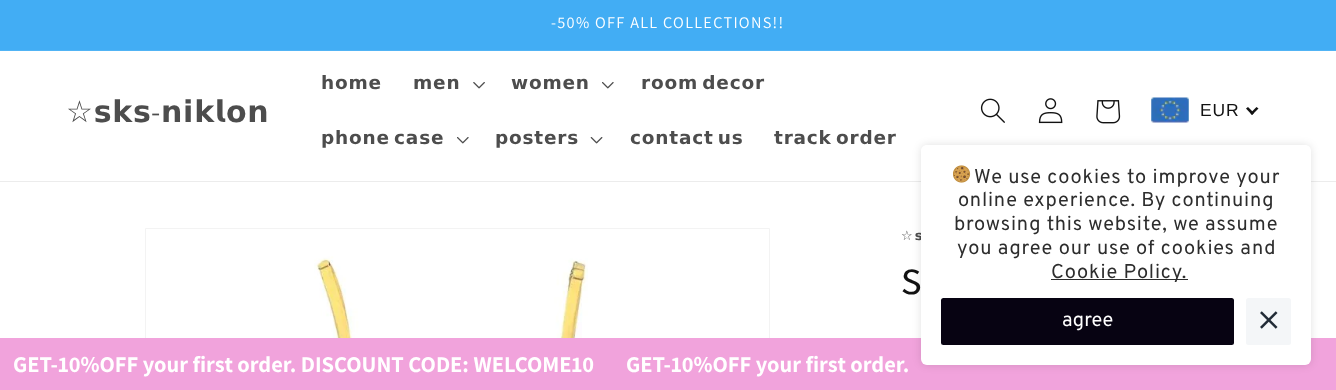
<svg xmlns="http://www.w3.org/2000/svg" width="1336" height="390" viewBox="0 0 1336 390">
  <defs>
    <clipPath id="clip1"><path d="M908 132H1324V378H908ZM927 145H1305C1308.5 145 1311 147.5 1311 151V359C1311 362.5 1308.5 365 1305 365H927C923.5 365 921 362.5 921 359V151C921 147.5 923.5 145 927 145Z" clip-rule="evenodd"/></clipPath>
  </defs>
  <rect width="100%" height="100%" fill="#fff"/>
  <path d="M0 0h1336v50H0z" fill="#42adf4"/>
  <path d="M0 50h1336v1H0z" fill="#51b4f5"/>
  <path d="M0 181h1336v1H0z" fill="#ececec"/>
  <image x="473" y="82" width="12" height="7" href="img/1.png"/>
  <image x="602" y="82" width="12" height="7" href="img/2.png"/>
  <image x="457" y="137" width="12" height="7" href="img/2.png"/>
  <image x="590" y="137" width="13" height="7" href="img/3.png"/>
  <image x="980" y="98" width="25" height="25" href="img/4.png"/>
  <image x="1038" y="98" width="25" height="26" href="img/5.png"/>
  <image x="1096" y="100" width="25" height="24" href="img/6.png"/>
  <image x="1151" y="97" width="38" height="26" href="img/7.png"/>
  <path d="M1256.5 107L1258.5 108.5L1252 115L1250.5 113Z" fill="#121212"/>
  <path d="M1248 107L1254 113L1252 115L1246 108.5Z" fill="#121212"/>
  <path d="M145.5 228.5h624v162H145.5z" fill="none" stroke="#f3f3f3"/>
  <image x="314" y="256" width="274" height="82" href="img/8.png"/>
  <path d="M0 338h1336v52H0z" fill="#f1a3dc"/>
  <text x="551" y="28" font-family="Assistant" font-size="16.25" letter-spacing="1.3" fill="#fff">-50% OFF ALL COLLECTIONS!!</text>
  <text x="66" y="122" font-family="DejaVu Sans" font-size="30" font-weight="bold" letter-spacing="0.75" fill="#4d4d4d">☆𝘀𝗸𝘀</text>
  <text x="151" y="122" font-family="Assistant" font-size="30" letter-spacing="0.75" fill="#4d4d4d">-</text>
  <text x="161" y="122" font-family="DejaVu Sans" font-size="30" font-weight="bold" letter-spacing="0.75" fill="#4d4d4d">𝗻𝗶𝗸𝗹𝗼𝗻</text>
  <g font-family="DejaVu Sans" font-size="18.5" font-weight="bold" letter-spacing="0.8" fill="#4d4d4d">
    <text x="321" y="89">𝗵𝗼𝗺𝗲</text>
    <text x="413" y="89">𝗺𝗲𝗻</text>
    <text x="511" y="89">𝘄𝗼𝗺𝗲𝗻</text>
    <text x="641" y="89" word-spacing="-3">𝗿𝗼𝗼𝗺 𝗱𝗲𝗰𝗼𝗿</text>
    <text x="321" y="144" word-spacing="-3">𝗽𝗵𝗼𝗻𝗲 𝗰𝗮𝘀𝗲</text>
    <text x="495" y="144">𝗽𝗼𝘀𝘁𝗲𝗿𝘀</text>
    <text x="630" y="144" word-spacing="-3">𝗰𝗼𝗻𝘁𝗮𝗰𝘁 𝘂𝘀</text>
    <text x="774" y="144" word-spacing="-3">𝘁𝗿𝗮𝗰𝗸 𝗼𝗿𝗱𝗲𝗿</text>
  </g>
  <text x="1200" y="116" font-family="Liberation Sans" font-size="17.5" letter-spacing="0.8" fill="#121212">EUR</text>
  <text x="901" y="240" font-family="DejaVu Sans" font-size="13" font-weight="bold" letter-spacing="2" fill="#4d4d4d">☆𝘀</text>
  <text x="901" y="294" font-family="Assistant" font-size="50" letter-spacing="0.75" fill="#121212">s</text>
  <rect x="921" y="145" width="390" height="220" rx="6" fill="#fff"/>
  <g clip-path="url(#clip1)">
    <rect x="921" y="145" width="390" height="220" rx="6" fill="#0000001f" filter="blur(4px)"/>
  </g>
  <image x="953" y="165" width="18" height="18" href="img/9.png"/>
  <g font-family="Overpass" font-size="20" letter-spacing="0.8" fill="#2d2d2d">
    <text x="974" y="183">We use cookies to improve your</text>
    <text x="958" y="206">online experience. By continuing</text>
    <text x="954" y="230">browsing this website, we assume</text>
    <text x="957" y="254">you agree our use of cookies and</text>
  </g>
  <path d="M1051 279h137v1H1051z" fill="#2d2d2d"/>
  <text x="1051" y="278" font-family="Overpass" font-size="20" letter-spacing="0.8" fill="#2d2d2d">Cookie Policy.</text>
  <rect x="941" y="298" width="293" height="47" rx="2.5" fill="#070312"/>
  <text x="1062" y="326" font-family="Overpass" font-size="20" fill="#fff">agree</text>
  <rect x="1246" y="298" width="45" height="47" rx="2.5" fill="#f4f6f8"/>
  <image x="1260" y="311" width="18" height="18" href="img/10.png"/>
  <g font-family="Assistant" font-size="22.5" font-weight="bold" fill="#fff">
    <text x="13" y="372">GET-10%OFF your first order. DISCOUNT CODE: WELCOME10</text>
    <text x="626" y="372">GET-10%OFF your first order.</text>
  </g>
</svg>
